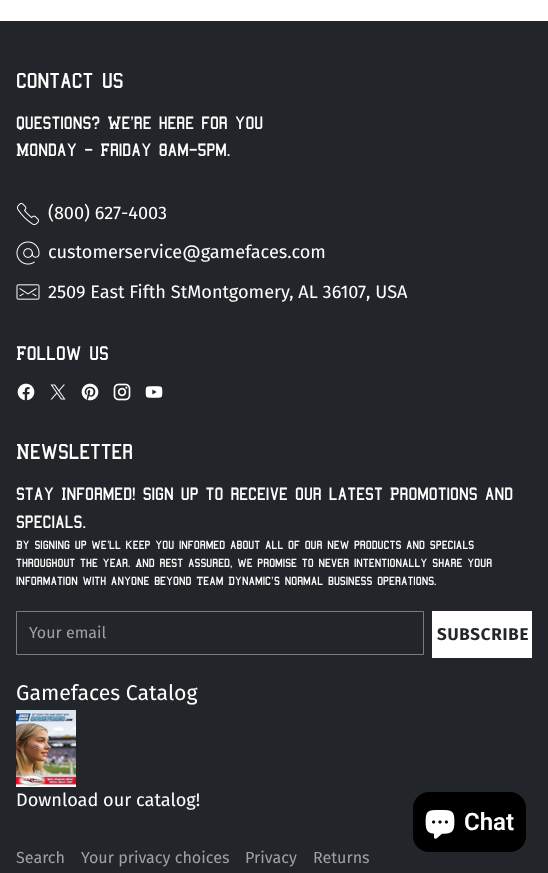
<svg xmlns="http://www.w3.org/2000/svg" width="548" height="873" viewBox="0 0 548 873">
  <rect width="100%" height="100%" fill="#fff"/>
  <path d="M0 21h548v852H0z" fill="#222529"/>
  <image x="17" y="203" width="22" height="22" href="img/1.png"/>
  <image x="16" y="241" width="24" height="24" href="img/2.png"/>
  <image x="16" y="284" width="24" height="16" href="img/3.png"/>
  <image x="17" y="383" width="18" height="18" href="img/4.png"/>
  <image x="50" y="384" width="16" height="16" href="img/5.png"/>
  <image x="81" y="383" width="18" height="18" href="img/6.png"/>
  <image x="113" y="383" width="18" height="18" href="img/7.png"/>
  <image x="145" y="386" width="18" height="12" href="img/8.png"/>
  <path d="M16.5 611.5h407v43H16.5z" fill="none" stroke="#7a7c7f"/>
  <path d="M432 611h100v47H432z" fill="#fff"/>
  <image x="16" y="710" width="60" height="77" href="img/9.png"/>
  <rect x="413" y="792" width="113" height="60" rx="16" fill="#000"/>
  <image x="425" y="810" width="30" height="29" href="img/10.png"/>
  <text x="16" y="88" font-family="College" font-size="22" fill="#fff">Contact us</text>
  <g font-family="College" font-size="18.15" fill="#fff">
    <text x="16" y="129">Questions? We're here for you</text>
    <text x="16" y="156">Monday - Friday 8am-5pm.</text>
  </g>
  <g font-family="Fira Sans" font-size="18.15" fill="#fff">
    <text x="48" y="219">(800) 627-4003</text>
    <text x="48" y="258">customerservice@gamefaces.com</text>
    <text x="48" y="298">2509 East Fifth StMontgomery, AL 36107, USA</text>
  </g>
  <text x="16" y="360" font-family="College" font-size="20" fill="#fff">Follow us</text>
  <text x="16" y="459" font-family="College" font-size="22" fill="#fff">Newsletter</text>
  <g font-family="College" font-size="18.15" fill="#fff">
    <text x="16" y="500">Stay Informed! Sign up to receive our latest Promotions and</text>
    <text x="16" y="528">Specials.</text>
  </g>
  <text x="16" y="549" font-family="College" font-size="12.15" fill="#fff">By signing up we</text>
  <text x="107" y="549" font-family="Liberation Sans" font-size="12.15" fill="#fff">’</text>
  <g font-family="College" font-size="12.15" fill="#fff">
    <text x="109" y="549">ll keep you informed about all of our new products and specials</text>
    <text x="16" y="567">throughout the year. And rest assured, we promise to never intentionally share your</text>
    <text x="16" y="585">information with anyone beyond Team Dynamic</text>
  </g>
  <text x="271" y="585" font-family="Liberation Sans" font-size="12.15" fill="#fff">’</text>
  <text x="274" y="585" font-family="College" font-size="12.15" fill="#fff">s normal business operations.</text>
  <text x="29" y="638" font-family="Fira Sans" font-size="16" fill="#a0a1a3">Your email</text>
  <text x="437" y="640" font-family="Fira Sans" font-size="17" font-weight="bold" letter-spacing="0.75" fill="#222529">SUBSCRIBE</text>
  <text x="16" y="700" font-family="Fira Sans" font-size="21.25" fill="#fff">Gamefaces Catalog</text>
  <text x="16" y="806" font-family="Fira Sans" font-size="18.15" fill="#fff">Download our catalog!</text>
  <g font-family="Fira Sans" font-size="16.1" fill="#a0a1a3">
    <text x="16" y="863">Search</text>
    <text x="81" y="863">Your privacy choices</text>
    <text x="245" y="863">Privacy</text>
    <text x="313" y="863">Returns</text>
  </g>
  <text x="464" y="830" font-family="Roboto" font-size="24" font-weight="600" fill="#fff">Chat</text>
</svg>
